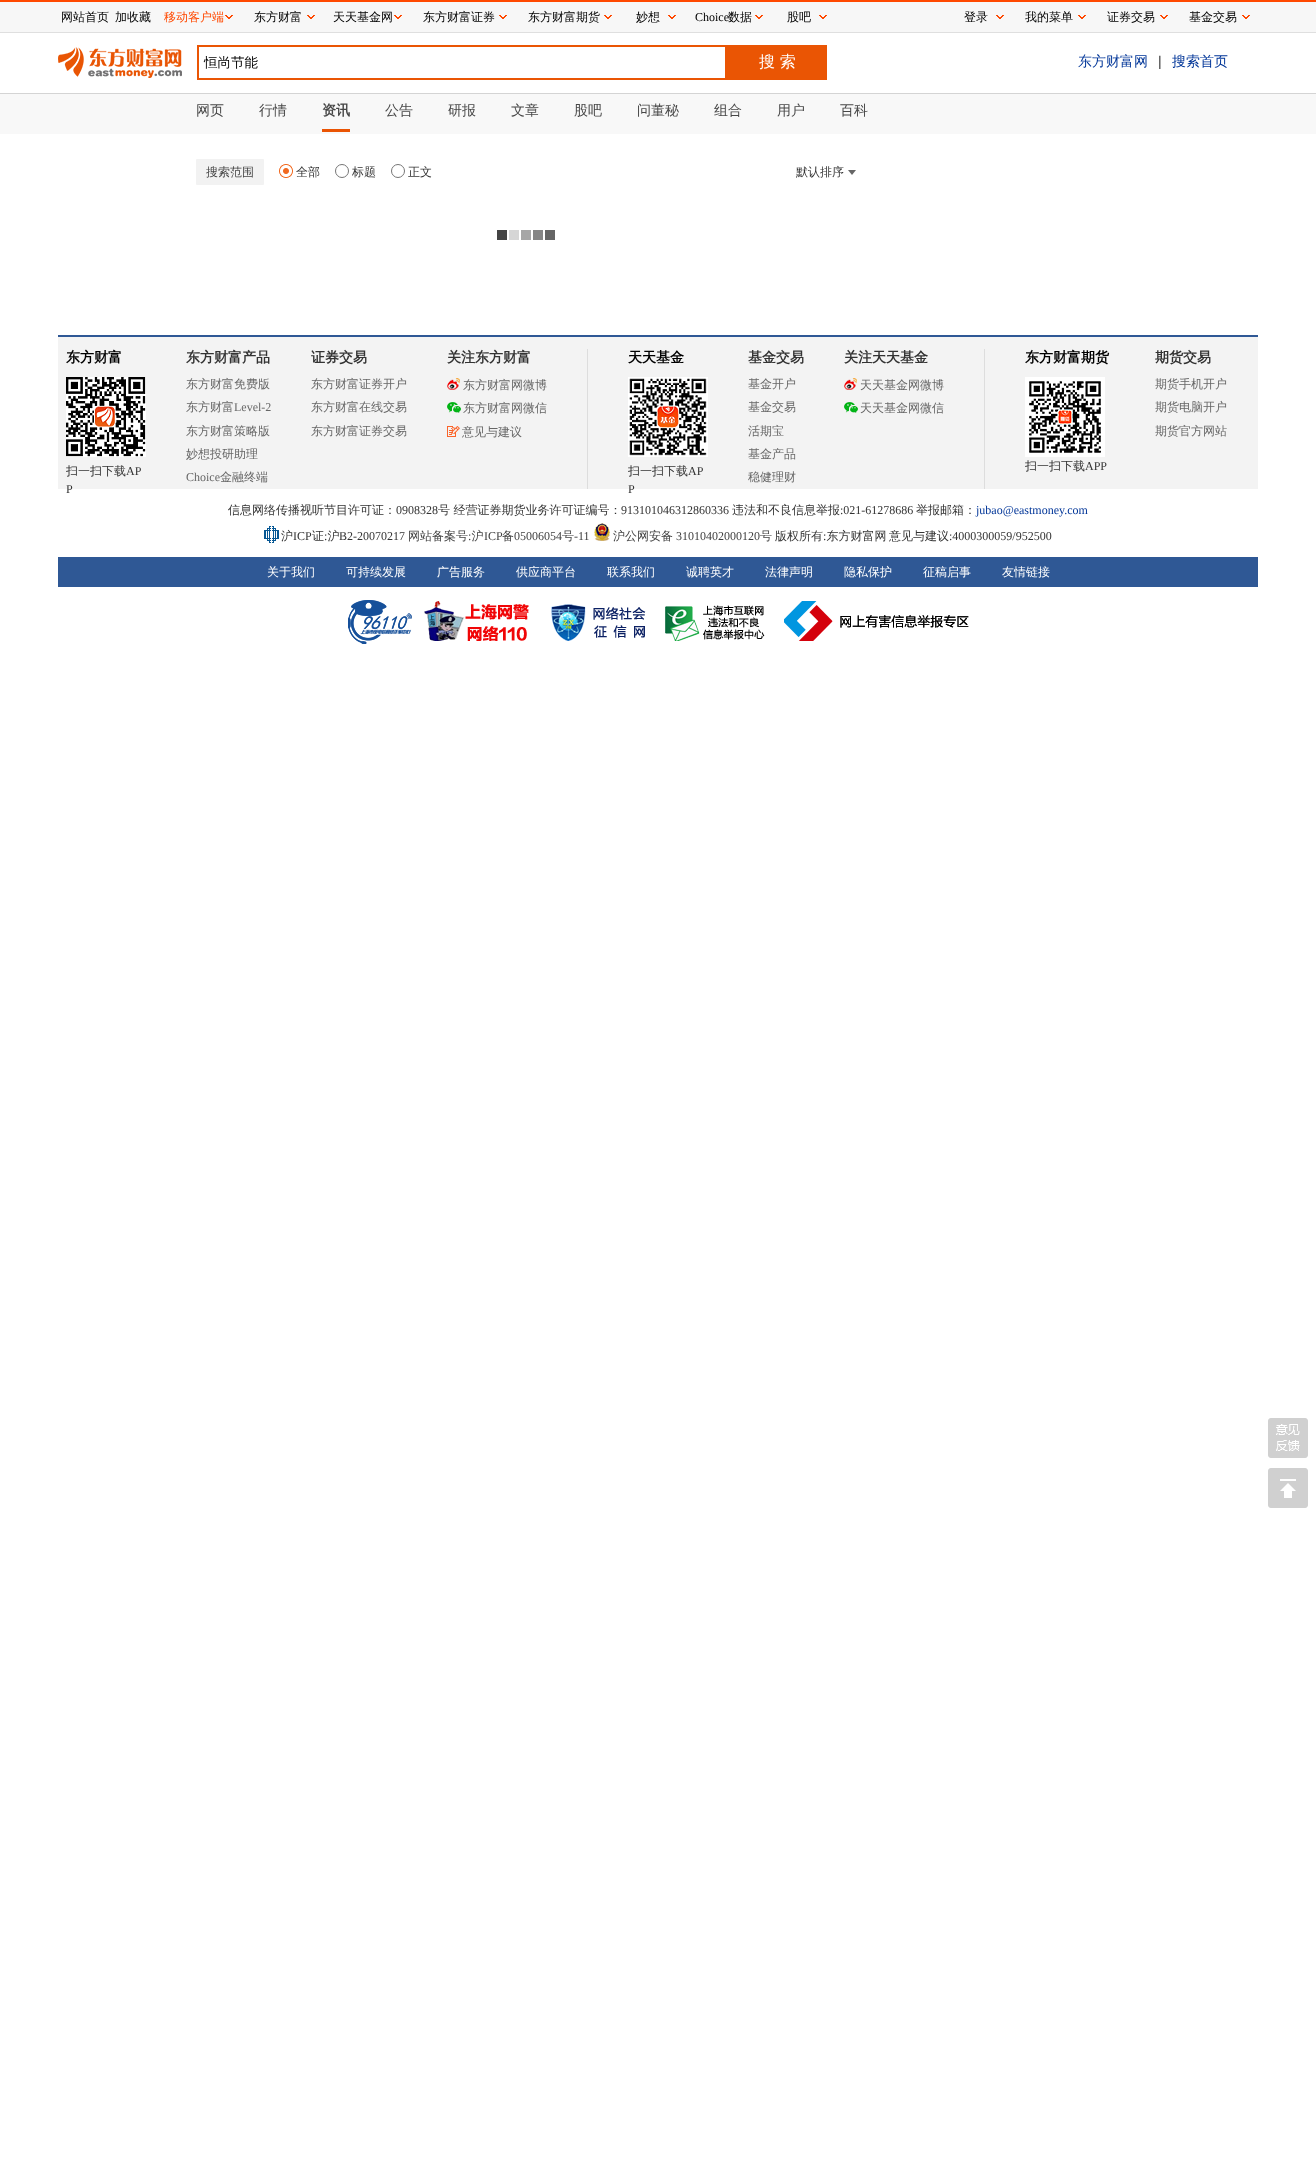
<svg xmlns="http://www.w3.org/2000/svg" width="1316" height="2169" viewBox="0 0 1316 2169">
  <rect width="100%" height="100%" fill="#fff"/>
  <path d="M0 2h1316v30H0z" fill="#f7f7f7"/>
  <path d="M0 0h1316v2H0z" fill="#ff4901"/>
  <path d="M0 32h1316v1H0z" fill="#dfdfdf"/>
  <image x="225" y="15" width="8" height="4" href="img/1.png"/>
  <image x="307" y="15" width="8" height="4" href="img/1.png"/>
  <image x="394" y="15" width="8" height="4" href="img/1.png"/>
  <image x="499" y="15" width="8" height="4" href="img/1.png"/>
  <image x="604" y="15" width="8" height="4" href="img/1.png"/>
  <image x="668" y="15" width="8" height="4" href="img/1.png"/>
  <image x="755" y="15" width="8" height="4" href="img/1.png"/>
  <image x="819" y="15" width="8" height="4" href="img/1.png"/>
  <image x="996" y="15" width="8" height="4" href="img/1.png"/>
  <image x="1078" y="15" width="8" height="4" href="img/1.png"/>
  <image x="1160" y="15" width="8" height="4" href="img/1.png"/>
  <image x="1242" y="15" width="8" height="4" href="img/1.png"/>
  <path d="M0 93h1316v1H0z" fill="#d4d4d4"/>
  <image x="58" y="47" width="124" height="31" href="img/2.png"/>
  <path d="M198 46h528v33H198z" fill="none" stroke="#ea5504" stroke-width="2"/>
  <path d="M727 45h100v35H727z" fill="#ea5504"/>
  <path d="M0 94h1316v40H0z" fill="#f8f8f8"/>
  <path d="M322 129h28v3H322z" fill="#ea5404"/>
  <rect x="196" y="159" width="68" height="26" rx="1" fill="#f2f2f2"/>
  <image x="279" y="164" width="14" height="14" href="img/3.png"/>
  <circle cx="342" cy="171" r="6.5" fill="none" stroke="#767676"/>
  <circle cx="398" cy="171" r="6.5" fill="none" stroke="#767676"/>
  <image x="848" y="170" width="8" height="5" href="img/4.png"/>
  <image x="497" y="230" width="58" height="10" href="img/5.png"/>
  <path d="M58 335h1200v2H58z" fill="#2f5895"/>
  <path d="M58 337h1200v152H58z" fill="#f3f3f3"/>
  <image x="66" y="377" width="80" height="80" href="img/6.png"/>
  <image x="447" y="378" width="13" height="12" href="img/7.png"/>
  <image x="447" y="402" width="14" height="11" href="img/8.png"/>
  <image x="447" y="426" width="13" height="11" href="img/9.png"/>
  <path d="M587 349h1v140H587z" fill="#ddd"/>
  <image x="628" y="377" width="80" height="80" href="img/10.png"/>
  <image x="844" y="378" width="13" height="12" href="img/7.png"/>
  <image x="844" y="402" width="14" height="11" href="img/8.png"/>
  <path d="M984 349h1v140H984z" fill="#ddd"/>
  <image x="1025" y="377" width="80" height="80" href="img/11.png"/>
  <image x="264" y="526" width="15" height="17" href="img/12.png"/>
  <image x="594" y="523" width="16" height="18" href="img/13.png"/>
  <path d="M58 557h1200v30H58z" fill="#2f5895"/>
  <image x="348" y="600" width="64" height="44" href="img/14.png"/>
  <image x="424" y="601" width="105" height="40" href="img/15.png"/>
  <image x="551" y="604" width="95" height="37" href="img/16.png"/>
  <image x="665" y="605" width="100" height="36" href="img/17.png"/>
  <image x="784" y="601" width="185" height="40" href="img/18.png"/>
  <image x="1268" y="1418" width="40" height="40" href="img/19.png"/>
  <image x="1268" y="1468" width="40" height="40" href="img/20.png"/>
  <g font-family="WenQuanYi Zen Hei" font-size="12" font-weight="500" fill="#000">
    <text x="61" y="21">网站首页</text>
    <text x="115" y="21">加收藏</text>
  </g>
  <text x="164" y="21" font-family="WenQuanYi Zen Hei" font-size="12" font-weight="500" fill="#ff4900">移动客户端</text>
  <g font-family="WenQuanYi Zen Hei" font-size="12" font-weight="500" fill="#000">
    <text x="254" y="21">东方财富</text>
    <text x="333" y="21">天天基金网</text>
    <text x="423" y="21">东方财富证券</text>
    <text x="528" y="21">东方财富期货</text>
    <text x="636" y="21">妙想</text>
  </g>
  <text x="695" y="21" font-family="Liberation Serif" font-size="12" fill="#000">Choice</text>
  <g font-family="WenQuanYi Zen Hei" font-size="12" font-weight="500" fill="#000">
    <text x="728" y="21">数据</text>
    <text x="787" y="21">股吧</text>
    <text x="964" y="21">登录</text>
    <text x="1025" y="21">我的菜单</text>
    <text x="1107" y="21">证券交易</text>
    <text x="1189" y="21">基金交易</text>
  </g>
  <text x="204" y="67" font-family="WenQuanYi Zen Hei" font-size="13.5" font-weight="500" fill="#000">恒尚节能</text>
  <text x="759" y="67" font-family="WenQuanYi Zen Hei" font-size="16" font-weight="500" fill="#fff">搜 索</text>
  <text x="1078" y="66" font-family="WenQuanYi Zen Hei" font-size="14" font-weight="500" fill="#003598">东方财富网</text>
  <text x="1158" y="66" font-family="Liberation Sans" font-size="14" fill="#333">|</text>
  <text x="1172" y="66" font-family="WenQuanYi Zen Hei" font-size="14" font-weight="500" fill="#003598">搜索首页</text>
  <g font-family="WenQuanYi Zen Hei" font-size="14" font-weight="500" fill="#474747">
    <text x="196" y="115">网页</text>
    <text x="259" y="115">行情</text>
  </g>
  <text x="322" y="115" font-family="WenQuanYi Zen Hei" font-size="14" font-weight="bold" fill="#474747">资讯</text>
  <g font-family="WenQuanYi Zen Hei" font-size="14" font-weight="500" fill="#474747">
    <text x="385" y="115">公告</text>
    <text x="448" y="115">研报</text>
    <text x="511" y="115">文章</text>
    <text x="574" y="115">股吧</text>
    <text x="637" y="115">问董秘</text>
    <text x="714" y="115">组合</text>
    <text x="777" y="115">用户</text>
    <text x="840" y="115">百科</text>
  </g>
  <text x="206" y="176" font-family="WenQuanYi Zen Hei" font-size="12" font-weight="500" fill="#474747">搜索范围</text>
  <g font-family="WenQuanYi Zen Hei" font-size="12" font-weight="500" fill="#333">
    <text x="296" y="176">全部</text>
    <text x="352" y="176">标题</text>
    <text x="408" y="176">正文</text>
    <text x="796" y="176">默认排序</text>
  </g>
  <text x="66" y="362" font-family="WenQuanYi Zen Hei" font-size="14" font-weight="bold" fill="#000">东方财富</text>
  <text x="66" y="475" font-family="WenQuanYi Zen Hei" font-size="12" font-weight="500" fill="#333">扫一扫下载</text>
  <g font-family="Liberation Serif" font-size="12" fill="#333">
    <text x="126" y="475">AP</text>
    <text x="66" y="493">P</text>
  </g>
  <text x="186" y="362" font-family="WenQuanYi Zen Hei" font-size="14" font-weight="bold" fill="#333">东方财富产品</text>
  <g font-family="WenQuanYi Zen Hei" font-size="12" font-weight="500" fill="#676767">
    <text x="186" y="388">东方财富免费版</text>
    <text x="186" y="411">东方财富</text>
  </g>
  <text x="234" y="411" font-family="Liberation Serif" font-size="12" fill="#676767">Level-2</text>
  <g font-family="WenQuanYi Zen Hei" font-size="12" font-weight="500" fill="#676767">
    <text x="186" y="435">东方财富策略版</text>
    <text x="186" y="458">妙想投研助理</text>
  </g>
  <text x="186" y="481" font-family="Liberation Serif" font-size="12" fill="#676767">Choice</text>
  <text x="220" y="481" font-family="WenQuanYi Zen Hei" font-size="12" font-weight="500" fill="#676767">金融终端</text>
  <text x="311" y="362" font-family="WenQuanYi Zen Hei" font-size="14" font-weight="bold" fill="#333">证券交易</text>
  <g font-family="WenQuanYi Zen Hei" font-size="12" font-weight="500" fill="#676767">
    <text x="311" y="388">东方财富证券开户</text>
    <text x="311" y="411">东方财富在线交易</text>
    <text x="311" y="435">东方财富证券交易</text>
  </g>
  <text x="447" y="362" font-family="WenQuanYi Zen Hei" font-size="14" font-weight="bold" fill="#333">关注东方财富</text>
  <g font-family="WenQuanYi Zen Hei" font-size="12" font-weight="500" fill="#676767">
    <text x="463" y="389">东方财富网微博</text>
    <text x="463" y="412">东方财富网微信</text>
    <text x="462" y="436">意见与建议</text>
  </g>
  <text x="628" y="362" font-family="WenQuanYi Zen Hei" font-size="14" font-weight="bold" fill="#000">天天基金</text>
  <text x="628" y="475" font-family="WenQuanYi Zen Hei" font-size="12" font-weight="500" fill="#333">扫一扫下载</text>
  <g font-family="Liberation Serif" font-size="12" fill="#333">
    <text x="688" y="475">AP</text>
    <text x="628" y="493">P</text>
  </g>
  <text x="748" y="362" font-family="WenQuanYi Zen Hei" font-size="14" font-weight="bold" fill="#333">基金交易</text>
  <g font-family="WenQuanYi Zen Hei" font-size="12" font-weight="500" fill="#676767">
    <text x="748" y="388">基金开户</text>
    <text x="748" y="411">基金交易</text>
    <text x="748" y="435">活期宝</text>
    <text x="748" y="458">基金产品</text>
    <text x="748" y="481">稳健理财</text>
  </g>
  <text x="844" y="362" font-family="WenQuanYi Zen Hei" font-size="14" font-weight="bold" fill="#333">关注天天基金</text>
  <g font-family="WenQuanYi Zen Hei" font-size="12" font-weight="500" fill="#676767">
    <text x="860" y="389">天天基金网微博</text>
    <text x="860" y="412">天天基金网微信</text>
  </g>
  <text x="1025" y="362" font-family="WenQuanYi Zen Hei" font-size="14" font-weight="bold" fill="#000">东方财富期货</text>
  <text x="1025" y="470" font-family="WenQuanYi Zen Hei" font-size="12" font-weight="500" fill="#333">扫一扫下载</text>
  <text x="1085" y="470" font-family="Liberation Serif" font-size="12" fill="#333">APP</text>
  <text x="1155" y="362" font-family="WenQuanYi Zen Hei" font-size="14" font-weight="bold" fill="#333">期货交易</text>
  <g font-family="WenQuanYi Zen Hei" font-size="12" font-weight="500" fill="#676767">
    <text x="1155" y="388">期货手机开户</text>
    <text x="1155" y="411">期货电脑开户</text>
    <text x="1155" y="435">期货官方网站</text>
  </g>
  <text x="228" y="514" font-family="WenQuanYi Zen Hei" font-size="12" font-weight="500" fill="#333">信息网络传播视听节目许可证：</text>
  <text x="396" y="514" font-family="Liberation Serif" font-size="12" fill="#333">0908328</text>
  <text x="438" y="514" font-family="WenQuanYi Zen Hei" font-size="12" font-weight="500" fill="#333">号 经营证券期货业务许可证编号：</text>
  <text x="621" y="514" font-family="Liberation Serif" font-size="12" fill="#333">913101046312860336</text>
  <text x="732" y="514" font-family="WenQuanYi Zen Hei" font-size="12" font-weight="500" fill="#333">违法和不良信息举报</text>
  <text x="840" y="514" font-family="Liberation Serif" font-size="12" fill="#333">:021-61278686</text>
  <text x="916" y="514" font-family="WenQuanYi Zen Hei" font-size="12" font-weight="500" fill="#333">举报邮箱：</text>
  <text x="976" y="514" font-family="Liberation Serif" font-size="12" fill="#003598">jubao@eastmoney.com</text>
  <text x="281" y="540" font-family="WenQuanYi Zen Hei" font-size="12" font-weight="500" fill="#333">沪</text>
  <text x="293" y="540" font-family="Liberation Serif" font-size="12" fill="#333">ICP</text>
  <text x="312" y="540" font-family="WenQuanYi Zen Hei" font-size="12" font-weight="500" fill="#333">证 沪</text>
  <text x="339" y="540" font-family="Liberation Serif" font-size="12" fill="#333">B2-20070217</text>
  <text x="408" y="540" font-family="WenQuanYi Zen Hei" font-size="12" font-weight="500" fill="#3f3f3f">网站备案号 沪</text>
  <text x="484" y="540" font-family="Liberation Serif" font-size="12" fill="#3f3f3f">ICP</text>
  <text x="502" y="540" font-family="WenQuanYi Zen Hei" font-size="12" font-weight="500" fill="#3f3f3f">备</text>
  <text x="514" y="540" font-family="Liberation Serif" font-size="12" fill="#3f3f3f">05006054</text>
  <text x="562" y="540" font-family="WenQuanYi Zen Hei" font-size="12" font-weight="500" fill="#3f3f3f">号</text>
  <text x="574" y="540" font-family="Liberation Serif" font-size="12" fill="#3f3f3f">-11</text>
  <text x="613" y="540" font-family="WenQuanYi Zen Hei" font-size="12" font-weight="500" fill="#3f3f3f">沪公网安备</text>
  <text x="676" y="540" font-family="Liberation Serif" font-size="12" fill="#3f3f3f">31010402000120</text>
  <text x="760" y="540" font-family="WenQuanYi Zen Hei" font-size="12" font-weight="500" fill="#3f3f3f">号</text>
  <g font-family="WenQuanYi Zen Hei" font-size="12" font-weight="500" fill="#333">
    <text x="775" y="540">版权所有 东方财富网</text>
    <text x="889" y="540">意见与建议</text>
  </g>
  <g font-family="Liberation Serif" font-size="12" fill="#333">
    <text x="949" y="540">:4000300059/952500</text>
    <text x="324" y="540">:</text>
  </g>
  <text x="468" y="540" font-family="Liberation Serif" font-size="12" fill="#3f3f3f">:</text>
  <text x="823" y="540" font-family="Liberation Serif" font-size="12" fill="#333">:</text>
  <g font-family="WenQuanYi Zen Hei" font-size="12" font-weight="500" fill="#fff">
    <text x="267" y="576">关于我们</text>
    <text x="346" y="576">可持续发展</text>
    <text x="437" y="576">广告服务</text>
    <text x="516" y="576">供应商平台</text>
    <text x="607" y="576">联系我们</text>
    <text x="686" y="576">诚聘英才</text>
    <text x="765" y="576">法律声明</text>
    <text x="844" y="576">隐私保护</text>
    <text x="923" y="576">征稿启事</text>
    <text x="1002" y="576">友情链接</text>
  </g>
</svg>
